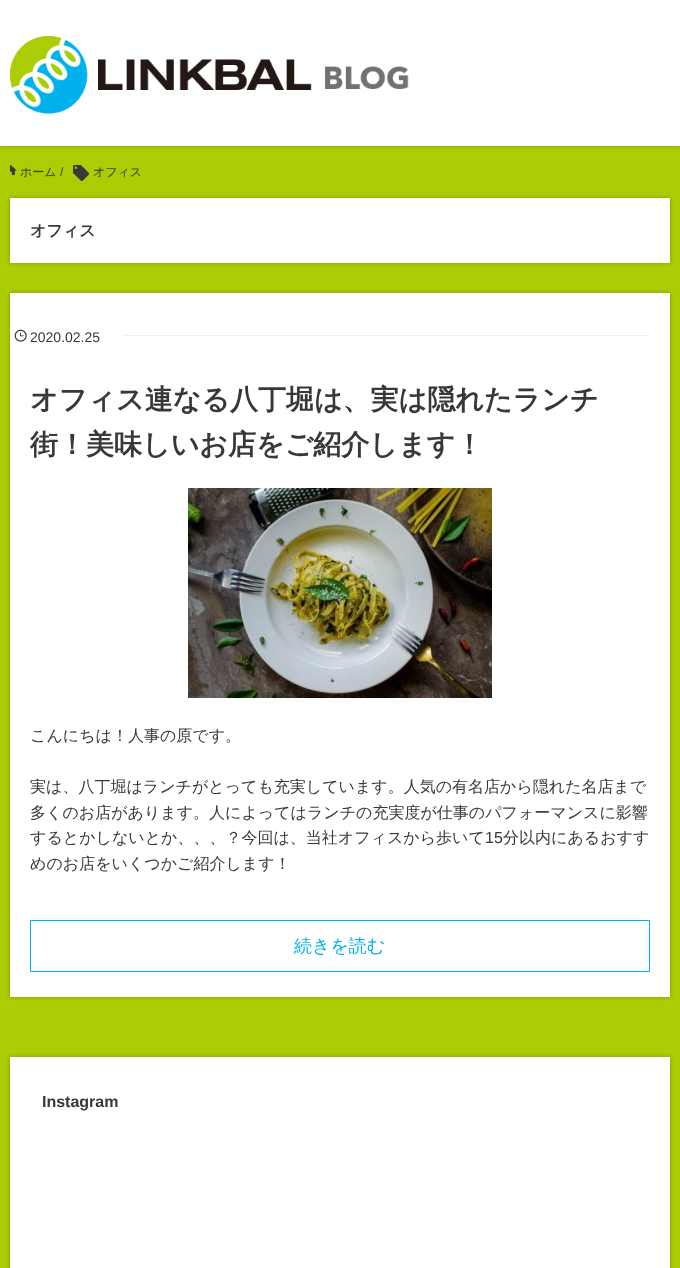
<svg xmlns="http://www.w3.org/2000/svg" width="680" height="1268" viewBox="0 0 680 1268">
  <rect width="100%" height="100%" fill="#abcd03"/>
  <path d="M0 0h680v146H0z" fill="#00000040" filter="blur(2px)"/>
  <path d="M0 0h680v146H0z" fill="#fff"/>
  <image x="10" y="36" width="399" height="78" href="img/1.png"/>
  <image x="10" y="165" width="7" height="10" href="img/2.png"/>
  <image x="73" y="165" width="16" height="16" href="img/3.png"/>
  <path d="M10 198h660v65H10z" fill="#00000040" filter="blur(2px)"/>
  <path d="M10 198h660v65H10z" fill="#fff"/>
  <path d="M10 293h660v704H10z" fill="#00000040" filter="blur(2px)"/>
  <path d="M10 293h660v704H10z" fill="#fff"/>
  <path d="M124 335h526v1H124z" fill="#efefef"/>
  <image x="14" y="329" width="13" height="13" href="img/4.png"/>
  <image x="188" y="488" width="304" height="210" href="img/5.png"/>
  <path d="M30.5 920.5h619v51H30.5z" fill="none" stroke="#00b1ed"/>
  <path d="M10 1057h660v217H10z" fill="#00000040" filter="blur(2px)"/>
  <path d="M10 1057h660v211H10z" fill="#fff"/>
  <text x="20" y="176" font-family="WenQuanYi Zen Hei" font-size="12" font-weight="500" fill="#383838">ホーム</text>
  <text x="60" y="176" font-family="Liberation Sans" font-size="12" fill="#383838">/</text>
  <text x="93" y="176" font-family="WenQuanYi Zen Hei" font-size="12" font-weight="500" fill="#383838">オフィス</text>
  <text x="30" y="236" font-family="WenQuanYi Zen Hei" font-size="16" font-weight="bold" fill="#383838">オフィス</text>
  <text x="30" y="342" font-family="Liberation Sans" font-size="14" fill="#383838">2020.02.25</text>
  <g font-family="WenQuanYi Zen Hei" font-size="28" font-weight="bold" fill="#383838">
    <text x="30" y="409">オフィス連なる八丁堀は、実は隠れたランチ</text>
    <text x="30" y="454">街！美味しいお店をご紹介します！</text>
  </g>
  <g font-family="WenQuanYi Zen Hei" font-size="16" font-weight="500" fill="#383838">
    <text x="30" y="741">こんにちは！人事の原です。</text>
    <text x="30" y="792">実は、八丁堀はランチがとっても充実しています。人気の有名店から隠れた名店まで</text>
    <text x="30" y="818">多くのお店があります。人によってはランチの充実度が仕事のパフォーマンスに影響</text>
    <text x="30" y="843">するとかしないとか、、、？今回は、当社オフィスから歩いて</text>
  </g>
  <text x="485" y="843" font-family="Liberation Sans" font-size="16" fill="#383838">15</text>
  <g font-family="WenQuanYi Zen Hei" font-size="16" font-weight="500" fill="#383838">
    <text x="503" y="843">分以内にあるおすす</text>
    <text x="30" y="869">めのお店をいくつかご紹介します！</text>
  </g>
  <text x="294" y="952" font-family="WenQuanYi Zen Hei" font-size="18" font-weight="500" fill="#00b1ed">続きを読む</text>
  <text x="42" y="1107" font-family="Liberation Sans" font-size="16" font-weight="bold" fill="#383838">Instagram</text>
</svg>
